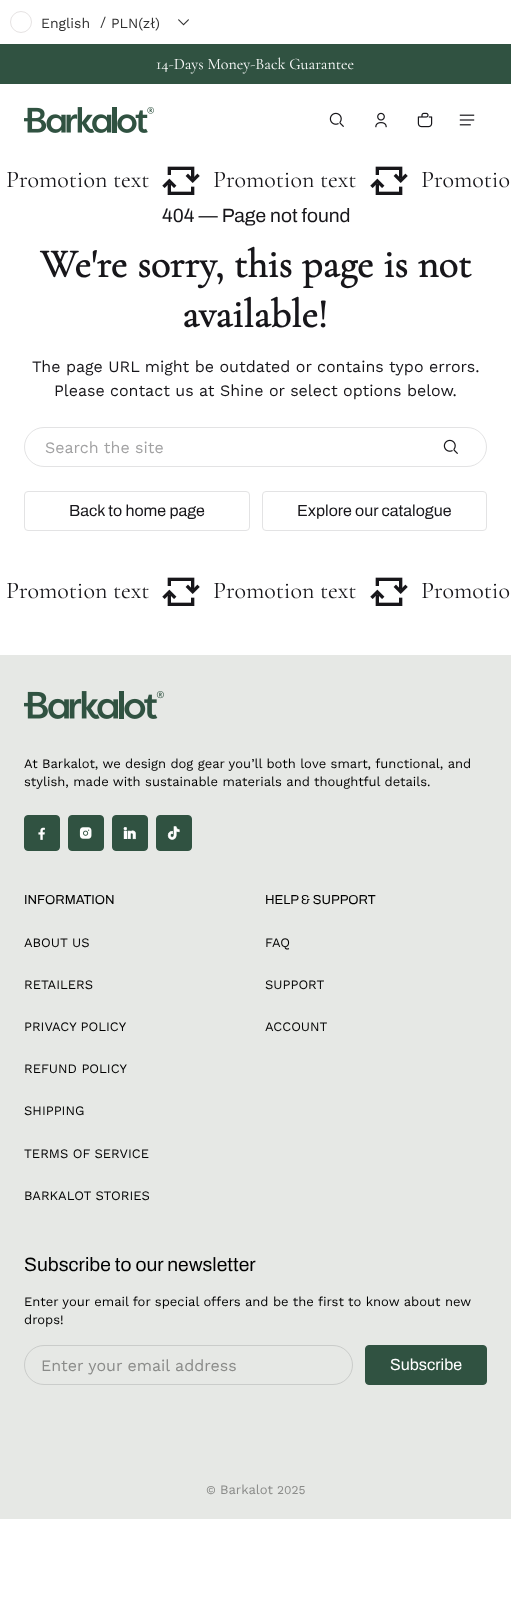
<svg xmlns="http://www.w3.org/2000/svg" width="511" height="1619" viewBox="0 0 511 1619">
  <rect width="100%" height="100%" fill="#fff"/>
  <circle cx="21" cy="22" r="10.5" fill="none" stroke="#e6e3e3"/>
  <image x="178" y="19" width="11" height="7" href="img/1.png"/>
  <path d="M0 44h511v40H0z" fill="#305241"/>
  <image x="24" y="107" width="130" height="26" href="img/2.png"/>
  <image x="329" y="112" width="15" height="15" href="img/3.png"/>
  <image x="375" y="112" width="12" height="16" href="img/4.png"/>
  <image x="417" y="112" width="16" height="16" href="img/5.png"/>
  <image x="459" y="114" width="16" height="12" href="img/6.png"/>
  <image x="162" y="166" width="38" height="29" href="img/7.png"/>
  <image x="370" y="166" width="38" height="29" href="img/7.png"/>
  <rect x="24.5" y="427.5" width="462" height="39" rx="19.5" fill="none" stroke="#e3e3e4"/>
  <image x="443" y="439" width="15" height="15" href="img/3.png"/>
  <rect x="24.5" y="491.5" width="225" height="39" rx="3.5" fill="none" stroke="#e3e3e4"/>
  <rect x="262.5" y="491.5" width="224" height="39" rx="3.5" fill="none" stroke="#e3e3e4"/>
  <image x="162" y="577" width="38" height="29" href="img/7.png"/>
  <image x="370" y="577" width="38" height="29" href="img/7.png"/>
  <path d="M0 655h511v864H0z" fill="#e6e8e5"/>
  <image x="24" y="691" width="140" height="28" href="img/8.png"/>
  <rect x="24.5" y="815.5" width="35" height="35" rx="3.5" fill="#305241" stroke="#305241"/>
  <image x="38" y="827" width="7" height="13" href="img/9.png"/>
  <rect x="68.5" y="815.5" width="35" height="35" rx="3.5" fill="#305241" stroke="#305241"/>
  <image x="79" y="827" width="13" height="12" href="img/10.png"/>
  <rect x="112.5" y="815.5" width="35" height="35" rx="3.5" fill="#305241" stroke="#305241"/>
  <image x="123" y="827" width="13" height="13" href="img/11.png"/>
  <rect x="156.5" y="815.5" width="35" height="35" rx="3.5" fill="#305241" stroke="#305241"/>
  <image x="167" y="826" width="13" height="14" href="img/12.png"/>
  <rect x="24.5" y="1345.5" width="328" height="39" rx="19.5" fill="none" stroke="#caccca"/>
  <rect x="365.5" y="1345.5" width="121" height="39" rx="3.5" fill="#305241" stroke="#305241"/>
  <g font-family="Work Sans" font-size="14" fill="#303030">
    <text x="41" y="28">English</text>
    <text x="100" y="27">/</text>
    <text x="111" y="28">PLN(zł)</text>
  </g>
  <text x="156" y="69" font-family="'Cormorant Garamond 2'" font-size="16" fill="#fff">14-Days Money-Back Guarantee</text>
  <g font-family="Cormorant Garamond" font-size="24" fill="#17161a">
    <text x="6" y="187">Promotion text</text>
    <text x="213" y="187">Promotion text</text>
    <text x="421" y="187">Promotio</text>
  </g>
  <text x="162" y="222" font-family="Archivo" font-size="19.25" fill="#17161a">404 — Page not found</text>
  <g font-family="Cormorant Garamond" font-size="40.25" font-weight="bold" fill="#17161a">
    <text x="40" y="277" word-spacing="0.5">We're sorry, this page is not</text>
    <text x="182" y="327">available!</text>
  </g>
  <g font-family="Work Sans" font-size="16" fill="#17161a">
    <text x="32" y="372">The page URL might be outdated or contains typo errors.</text>
    <text x="54" y="396">Please contact us at Shine or select options below.</text>
  </g>
  <text x="45" y="453" font-family="Work Sans" font-size="16" fill="#a2a2a3">Search the site</text>
  <g font-family="Archivo" font-size="16" fill="#17161a">
    <text x="69" y="516">Back to home page</text>
    <text x="297" y="516">Explore our catalogue</text>
  </g>
  <g font-family="Cormorant Garamond" font-size="24" fill="#17161a">
    <text x="6" y="598">Promotion text</text>
    <text x="213" y="598">Promotion text</text>
    <text x="421" y="598">Promotio</text>
  </g>
  <g font-family="Work Sans" font-size="13" fill="#000">
    <text x="24" y="768">At Barkalot, we design dog gear you’ll both love smart, functional, and</text>
    <text x="24" y="786">stylish, made with sustainable materials and thoughtful details.</text>
  </g>
  <text x="24" y="904" font-family="Archivo" font-size="13" fill="#000">INFORMATION</text>
  <g font-family="Work Sans" font-size="13" fill="#000">
    <text x="24" y="947">ABOUT US</text>
    <text x="24" y="989">RETAILERS</text>
    <text x="24" y="1031">PRIVACY POLICY</text>
    <text x="24" y="1073">REFUND POLICY</text>
    <text x="24" y="1115">SHIPPING</text>
    <text x="24" y="1158">TERMS OF SERVICE</text>
    <text x="24" y="1200">BARKALOT STORIES</text>
  </g>
  <text x="265" y="904" font-family="Archivo" font-size="13" fill="#000">HELP &amp; SUPPORT</text>
  <g font-family="Work Sans" font-size="13" fill="#000">
    <text x="265" y="947">FAQ</text>
    <text x="265" y="989">SUPPORT</text>
    <text x="265" y="1031">ACCOUNT</text>
  </g>
  <text x="24" y="1271" font-family="Archivo" font-size="19.25" fill="#000">Subscribe to our newsletter</text>
  <g font-family="Work Sans" font-size="13" fill="#000">
    <text x="24" y="1306">Enter your email for special offers and be the first to know about new</text>
    <text x="24" y="1324">drops!</text>
  </g>
  <text x="41" y="1371" font-family="Work Sans" font-size="16" fill="#8a8b89">Enter your email address</text>
  <text x="390" y="1370" font-family="Archivo" font-size="16" fill="#fff">Subscribe</text>
  <text x="206" y="1494" font-family="Work Sans" font-size="12" fill="#8a8b89">©</text>
  <text x="220" y="1494" font-family="Work Sans" font-size="13" fill="#8a8b89">Barkalot</text>
  <text x="277" y="1494" font-family="Work Sans" font-size="12" fill="#8a8b89">2025</text>
</svg>
